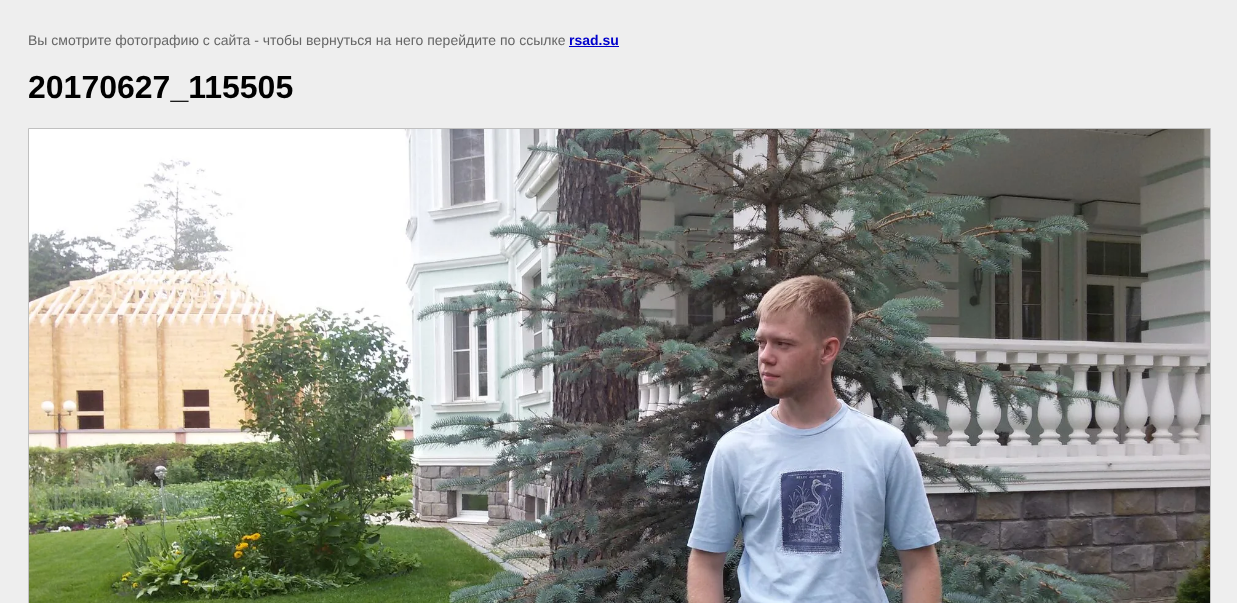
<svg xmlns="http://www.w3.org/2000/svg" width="1237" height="603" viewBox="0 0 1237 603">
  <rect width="100%" height="100%" fill="#eee"/>
  <path d="M569 46h50v1H569z" fill="#00c"/>
  <path d="M28.5 128.5h1182v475H28.5z" fill="none" stroke="#c0c0c0"/>
  <image x="29" y="129" width="1181" height="474" href="img/1.png"/>
  <text x="28" y="45" font-family="Liberation Sans" font-size="14" fill="#666">Вы смотрите фотографию с сайта - чтобы вернуться на него перейдите по ссылке</text>
  <text x="569" y="45" font-family="Liberation Sans" font-size="14" font-weight="bold" fill="#00c">rsad.su</text>
  <text x="28" y="98" font-family="Liberation Sans" font-size="32" font-weight="bold" fill="#000">20170627_115505</text>
</svg>
